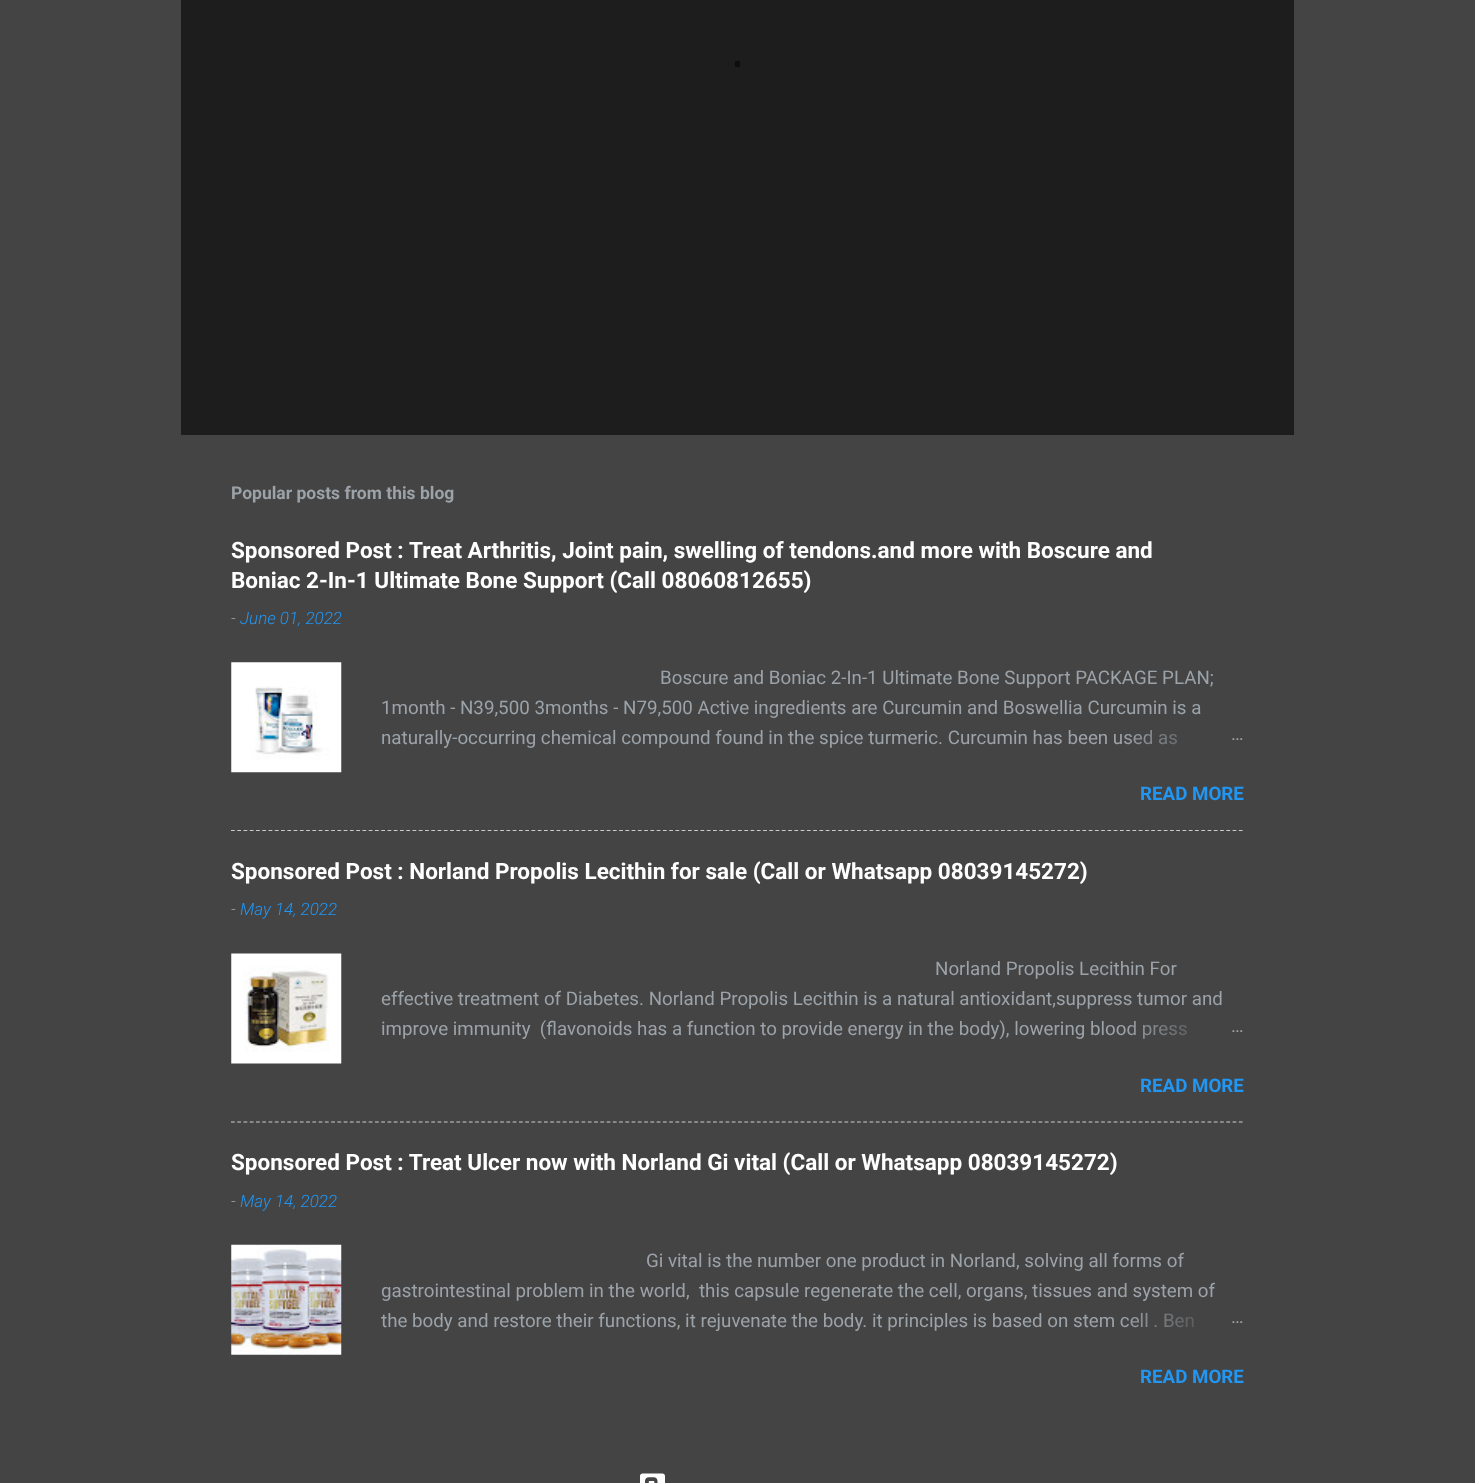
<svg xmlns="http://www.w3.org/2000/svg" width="1475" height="1483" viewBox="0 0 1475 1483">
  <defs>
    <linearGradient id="g1" gradientUnits="userSpaceOnUse" x1="1244" y1="738" x2="1124" y2="738"><stop offset="0" stop-color="#444"/><stop offset="0.2" stop-color="#444"/><stop offset="1" stop-color="#444" stop-opacity="0"/></linearGradient>
    <linearGradient id="g2" gradientUnits="userSpaceOnUse" x1="1244" y1="1029" x2="1124" y2="1029"><stop offset="0" stop-color="#444"/><stop offset="0.2" stop-color="#444"/><stop offset="1" stop-color="#444" stop-opacity="0"/></linearGradient>
    <linearGradient id="g3" gradientUnits="userSpaceOnUse" x1="1244" y1="1320" x2="1124" y2="1320"><stop offset="0" stop-color="#444"/><stop offset="0.2" stop-color="#444"/><stop offset="1" stop-color="#444" stop-opacity="0"/></linearGradient>
  </defs>
  <rect width="100%" height="100%" fill="#444"/>
  <path d="M181 0h1113v435H181z" fill="#1d1d1d"/>
  <path d="M735 61h5v6H735z" fill="#0d0d0d"/>
  <image x="231" y="662" width="111" height="111" href="img/1.png"/>
  <path d="M231 830.5H1244" fill="none" stroke="#ccc" stroke-width="1.2" stroke-dasharray="3.75 2.51"/>
  <image x="231" y="953" width="111" height="111" href="img/2.png"/>
  <path d="M231 1122H1244" fill="none" stroke="#ccc" stroke-width="1.2" stroke-dasharray="3.75 2.51"/>
  <image x="231" y="1244" width="111" height="111" href="img/3.png"/>
  <image x="640" y="1473" width="25" height="10" href="img/4.png"/>
  <text x="231" y="499" font-family="Roboto" font-size="17.5" font-weight="bold" fill="#9ba2a8">Popular posts from this blog</text>
  <g font-family="Roboto" font-size="22.5" font-weight="bold" fill="#fff">
    <text x="231" y="558">Sponsored Post :</text>
    <text x="409" y="558">Treat Arthritis, Joint pain, swelling of tendons.and more with Boscure and</text>
    <text x="231" y="588">Boniac 2-In-1 Ultimate Bone Support (Call 08060812655)</text>
  </g>
  <text x="231" y="624" font-family="Roboto" font-size="17" font-weight="300" font-style="italic" fill="#a9a9a9">-</text>
  <text x="240" y="624" font-family="Roboto" font-size="17" font-weight="300" font-style="italic" fill="#2196f3">June 01, 2022</text>
  <g font-family="Roboto" font-size="18.75" fill="#9ba2a8">
    <text x="660" y="684">Boscure and Boniac 2-In-1 Ultimate Bone Support PACKAGE PLAN;</text>
    <text x="381" y="714">1month - N39,500 3months - N79,500 Active ingredients are Curcumin and Boswellia Curcumin is a</text>
    <text x="381" y="744">naturally-occurring chemical compound found in the spice turmeric. Curcumin has been used as</text>
  </g>
  <path d="M1127 730h51v15H1127z" fill="url(#g1)"/>
  <text x="1231" y="740" font-family="Roboto" font-size="18.75" fill="#9ba2a8">…</text>
  <text x="1140" y="800" font-family="Roboto" font-size="18.75" font-weight="bold" fill="#2196f3">READ MORE</text>
  <text x="231" y="879" font-family="Roboto" font-size="22.5" font-weight="bold" fill="#fff">Sponsored Post : Norland Propolis Lecithin for sale (Call or Whatsapp 08039145272)</text>
  <text x="231" y="915" font-family="Roboto" font-size="17" font-weight="300" font-style="italic" fill="#a9a9a9">-</text>
  <text x="240" y="915" font-family="Roboto" font-size="17" font-weight="300" font-style="italic" fill="#2196f3">May 14, 2022</text>
  <g font-family="Roboto" font-size="18.75" fill="#9ba2a8">
    <text x="935" y="975">Norland Propolis Lecithin For</text>
    <text x="381" y="1005">effective treatment of Diabetes. Norland Propolis Lecithin is a natural antioxidant,suppress tumor and</text>
    <text x="381" y="1035" xml:space="preserve">improve immunity  (flavonoids has a function to provide energy in the body), lowering blood press</text>
  </g>
  <path d="M1128 1021h59v18H1128z" fill="url(#g2)"/>
  <text x="1231" y="1032" font-family="Roboto" font-size="18.75" fill="#9ba2a8">…</text>
  <text x="1140" y="1092" font-family="Roboto" font-size="18.75" font-weight="bold" fill="#2196f3">READ MORE</text>
  <text x="231" y="1170" font-family="Roboto" font-size="22.5" font-weight="bold" fill="#fff">Sponsored Post : Treat Ulcer now with Norland Gi vital (Call or Whatsapp 08039145272)</text>
  <text x="231" y="1207" font-family="Roboto" font-size="17" font-weight="300" font-style="italic" fill="#a9a9a9">-</text>
  <text x="240" y="1207" font-family="Roboto" font-size="17" font-weight="300" font-style="italic" fill="#2196f3">May 14, 2022</text>
  <g font-family="Roboto" font-size="18.75" fill="#9ba2a8">
    <text x="646" y="1267">Gi vital is the number one product in Norland, solving all forms of</text>
    <text x="381" y="1297" xml:space="preserve">gastrointestinal problem in the world,  this capsule regenerate the cell, organs, tissues and system of</text>
    <text x="381" y="1327">the body and restore their functions, it rejuvenate the body. it principles is based on stem cell . Ben</text>
  </g>
  <path d="M1127 1313h67v15H1127z" fill="url(#g3)"/>
  <text x="1231" y="1323" font-family="Roboto" font-size="18.75" fill="#9ba2a8">…</text>
  <text x="1140" y="1383" font-family="Roboto" font-size="18.75" font-weight="bold" fill="#2196f3">READ MORE</text>
</svg>
